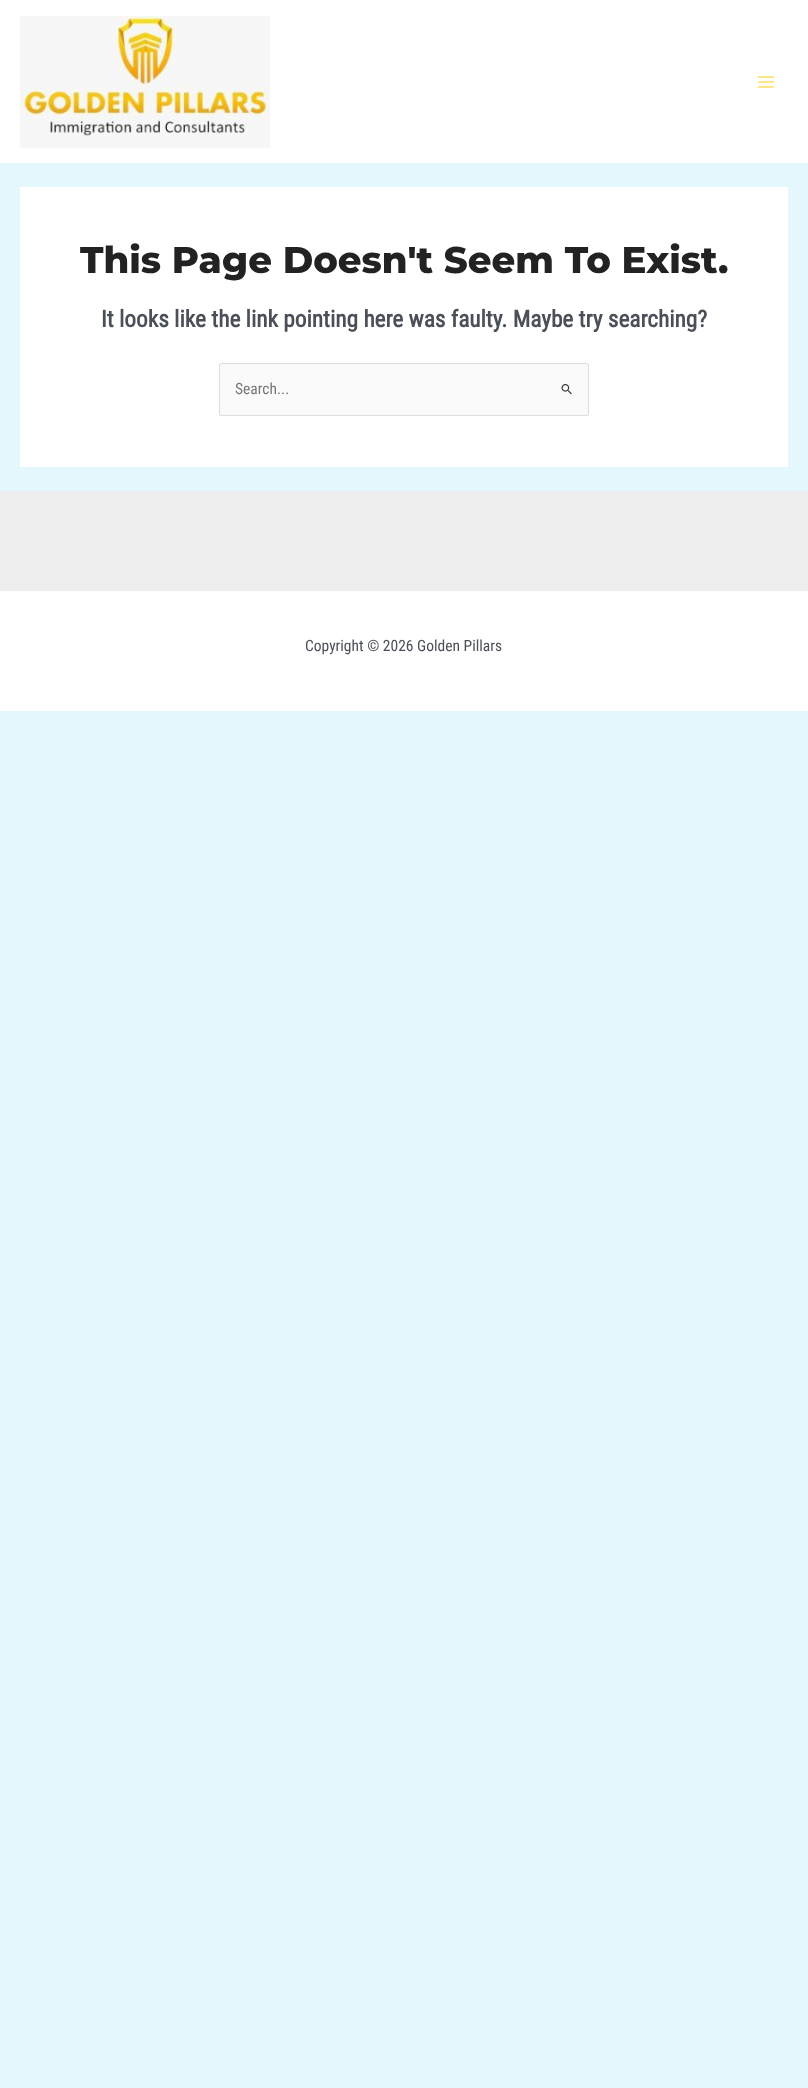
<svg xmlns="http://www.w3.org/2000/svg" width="808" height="2088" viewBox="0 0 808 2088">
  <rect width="100%" height="100%" fill="#e4f7fc"/>
  <path d="M0 0h808v163H0z" fill="#fff"/>
  <image x="20" y="16" width="250" height="132" href="img/1.png"/>
  <image x="757" y="76" width="18" height="12" href="img/2.png"/>
  <path d="M20 187h768v280H20z" fill="#fff"/>
  <rect x="219.5" y="363.5" width="369" height="52" rx="1.5" fill="#fafafa" stroke="#ddd"/>
  <image x="561" y="384" width="11" height="11" href="img/3.png"/>
  <path d="M0 491h808v100H0z" fill="#eee"/>
  <path d="M0 591h808v120H0z" fill="#fff"/>
  <text x="80" y="273" font-family="Montserrat" font-size="37" font-weight="100" fill="#222">This Page Doesn't Seem To Exist.</text>
  <text x="101" y="327" font-family="Roboto Condensed" font-size="23.25" font-weight="bold" fill="#4b4f58">It looks like the link pointing here was faulty. Maybe try searching?</text>
  <text x="235" y="394" font-family="Roboto Condensed" font-size="15.5" fill="#757575">Search...</text>
  <text x="305" y="651" font-family="Roboto Condensed" font-size="15.5" fill="#4b4f58">Copyright © 2026 Golden Pillars</text>
</svg>
